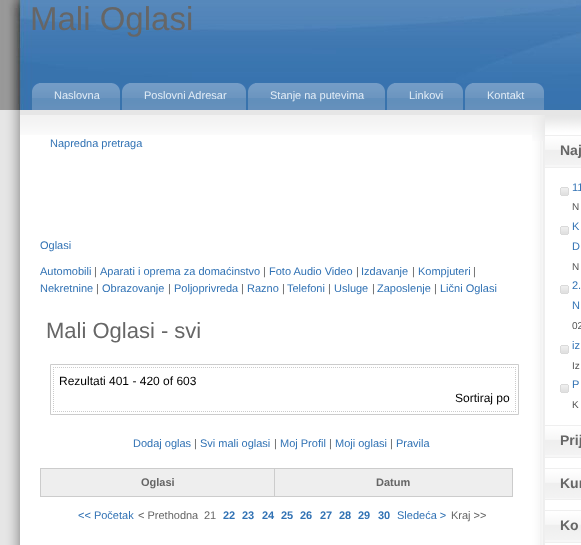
<svg xmlns="http://www.w3.org/2000/svg" width="581" height="545" viewBox="0 0 581 545">
  <rect width="100%" height="100%" fill="#fff"/>
  <image x="0" y="0" width="581" height="110" href="img/1.png"/>
  <image x="32" y="83" width="7" height="27" href="img/2.png"/>
  <image x="39" y="83" width="81" height="27" href="img/3.png"/>
  <image x="122" y="83" width="7" height="27" href="img/2.png"/>
  <image x="129" y="83" width="117" height="27" href="img/4.png"/>
  <image x="248" y="83" width="7" height="27" href="img/2.png"/>
  <image x="255" y="83" width="130" height="27" href="img/5.png"/>
  <image x="387" y="83" width="7" height="27" href="img/2.png"/>
  <image x="394" y="83" width="69" height="27" href="img/6.png"/>
  <image x="465" y="83" width="7" height="27" href="img/2.png"/>
  <image x="472" y="83" width="72" height="27" href="img/7.png"/>
  <image x="20" y="110" width="512" height="25" href="img/8.png"/>
  <image x="0" y="110" width="20" height="435" href="img/9.png"/>
  <path d="M50.5 364.5h468v50H50.5z" fill="none" stroke="#ccc"/>
  <path d="M53 367.5H516" fill="none" stroke="#ccc" stroke-dasharray="1 1"/>
  <path d="M515.5 367V412" fill="none" stroke="#ccc" stroke-dasharray="1 1"/>
  <path d="M53 411.5H516" fill="none" stroke="#ccc" stroke-dasharray="1 1"/>
  <path d="M53.5 367V412" fill="none" stroke="#ccc" stroke-dasharray="1 1"/>
  <path d="M40 468h473v1H40z" fill="#ccc"/>
  <path d="M512 468h1v29H512z" fill="#ccc"/>
  <path d="M40 496h473v1H40z" fill="#ccc"/>
  <path d="M40 468h1v29H40z" fill="#ccc"/>
  <path d="M41 469h233v27H41z" fill="#eee"/>
  <path d="M275 469h237v27H275z" fill="#eee"/>
  <path d="M274 468h1v29H274z" fill="#ccc"/>
  <image x="532" y="141" width="49" height="404" href="img/10.png"/>
  <image x="532" y="110" width="49" height="31" href="img/11.png"/>
  <path d="M545 165h36v2H545z" fill="#f7f7f7"/>
  <image x="545" y="136" width="36" height="29" href="img/12.png"/>
  <path d="M545 135h36v1H545z" fill="#efefef"/>
  <path d="M545 167h36v1H545z" fill="#efefef"/>
  <image x="560" y="187" width="9" height="9" href="img/13.png"/>
  <image x="560" y="226" width="9" height="9" href="img/13.png"/>
  <image x="560" y="285" width="9" height="9" href="img/13.png"/>
  <image x="560" y="345" width="9" height="9" href="img/13.png"/>
  <image x="560" y="384" width="9" height="9" href="img/13.png"/>
  <path d="M545 455h36v2H545z" fill="#f7f7f7"/>
  <image x="545" y="426" width="36" height="29" href="img/12.png"/>
  <path d="M545 425h36v1H545z" fill="#efefef"/>
  <path d="M545 457h36v1H545z" fill="#efefef"/>
  <path d="M545 498h36v1H545z" fill="#f7f7f7"/>
  <image x="545" y="469" width="36" height="29" href="img/12.png"/>
  <path d="M545 468h36v1H545z" fill="#efefef"/>
  <path d="M545 499h36v1H545z" fill="#efefef"/>
  <path d="M545 540h36v2H545z" fill="#f7f7f7"/>
  <image x="545" y="511" width="36" height="29" href="img/12.png"/>
  <path d="M545 510h36v1H545z" fill="#efefef"/>
  <path d="M545 542h36v1H545z" fill="#efefef"/>
  <text x="30" y="30" font-family="Liberation Sans" font-size="33" fill="#666">Mali Oglasi</text>
  <g font-family="Liberation Sans" font-size="11" fill="#e1ecf6">
    <text x="54" y="99">Naslovna</text>
    <text x="144" y="99">Poslovni Adresar</text>
    <text x="270" y="99">Stanje na putevima</text>
    <text x="409" y="99">Linkovi</text>
    <text x="487" y="99">Kontakt</text>
  </g>
  <g font-family="Liberation Sans" font-size="11" fill="#3172b4">
    <text x="50" y="147">Napredna pretraga</text>
    <text x="40" y="249">Oglasi</text>
    <text x="40" y="275">Automobili</text>
  </g>
  <text x="94" y="275" font-family="Liberation Sans" font-size="11" fill="#666">|</text>
  <text x="100" y="275" font-family="Liberation Sans" font-size="11" fill="#3172b4">Aparati i oprema za domaćinstvo</text>
  <text x="263" y="275" font-family="Liberation Sans" font-size="11" fill="#666">|</text>
  <text x="269" y="275" font-family="Liberation Sans" font-size="11" fill="#3172b4">Foto Audio Video</text>
  <text x="356" y="275" font-family="Liberation Sans" font-size="11" fill="#666">|</text>
  <text x="361" y="275" font-family="Liberation Sans" font-size="11" fill="#3172b4">Izdavanje</text>
  <text x="412" y="275" font-family="Liberation Sans" font-size="11" fill="#666">|</text>
  <text x="418" y="275" font-family="Liberation Sans" font-size="11" fill="#3172b4">Kompjuteri</text>
  <text x="473" y="275" font-family="Liberation Sans" font-size="11" fill="#666">|</text>
  <text x="40" y="292" font-family="Liberation Sans" font-size="11" fill="#3172b4">Nekretnine</text>
  <text x="96" y="292" font-family="Liberation Sans" font-size="11" fill="#666">|</text>
  <text x="102" y="292" font-family="Liberation Sans" font-size="11" fill="#3172b4">Obrazovanje</text>
  <text x="168" y="292" font-family="Liberation Sans" font-size="11" fill="#666">|</text>
  <text x="174" y="292" font-family="Liberation Sans" font-size="11" fill="#3172b4">Poljoprivreda</text>
  <text x="241" y="292" font-family="Liberation Sans" font-size="11" fill="#666">|</text>
  <text x="247" y="292" font-family="Liberation Sans" font-size="11" fill="#3172b4">Razno</text>
  <text x="282" y="292" font-family="Liberation Sans" font-size="11" fill="#666">|</text>
  <text x="287" y="292" font-family="Liberation Sans" font-size="11" fill="#3172b4">Telefoni</text>
  <text x="328" y="292" font-family="Liberation Sans" font-size="11" fill="#666">|</text>
  <text x="334" y="292" font-family="Liberation Sans" font-size="11" fill="#3172b4">Usluge</text>
  <text x="372" y="292" font-family="Liberation Sans" font-size="11" fill="#666">|</text>
  <text x="377" y="292" font-family="Liberation Sans" font-size="11" fill="#3172b4">Zaposlenje</text>
  <text x="434" y="292" font-family="Liberation Sans" font-size="11" fill="#666">|</text>
  <text x="440" y="292" font-family="Liberation Sans" font-size="11" fill="#3172b4">Lični Oglasi</text>
  <text x="46" y="338" font-family="Liberation Sans" font-size="22" fill="#666">Mali Oglasi - svi</text>
  <g font-family="Liberation Sans" font-size="12" fill="#000">
    <text x="59" y="385">Rezultati 401 - 420 of 603</text>
    <text x="455" y="402">Sortiraj po</text>
  </g>
  <text x="133" y="447" font-family="Liberation Sans" font-size="11" fill="#3172b4">Dodaj oglas</text>
  <text x="194" y="447" font-family="Liberation Sans" font-size="11" fill="#666">|</text>
  <text x="200" y="447" font-family="Liberation Sans" font-size="11" fill="#3172b4">Svi mali oglasi</text>
  <text x="274" y="447" font-family="Liberation Sans" font-size="11" fill="#666">|</text>
  <text x="280" y="447" font-family="Liberation Sans" font-size="11" fill="#3172b4">Moj Profil</text>
  <text x="329" y="447" font-family="Liberation Sans" font-size="11" fill="#666">|</text>
  <text x="335" y="447" font-family="Liberation Sans" font-size="11" fill="#3172b4">Moji oglasi</text>
  <text x="390" y="447" font-family="Liberation Sans" font-size="11" fill="#666">|</text>
  <text x="396" y="447" font-family="Liberation Sans" font-size="11" fill="#3172b4">Pravila</text>
  <g font-family="Liberation Sans" font-size="11" font-weight="bold" fill="#666">
    <text x="141" y="486">Oglasi</text>
    <text x="376" y="486">Datum</text>
  </g>
  <text x="78" y="519" font-family="Liberation Sans" font-size="11" fill="#3172b4">&lt;&lt; Početak</text>
  <g font-family="Liberation Sans" font-size="11" fill="#666">
    <text x="138" y="519">&lt; Prethodna</text>
    <text x="204" y="519">21</text>
  </g>
  <g font-family="Liberation Sans" font-size="11" font-weight="bold" fill="#3172b4">
    <text x="223" y="519">22</text>
    <text x="242" y="519">23</text>
    <text x="262" y="519">24</text>
    <text x="281" y="519">25</text>
    <text x="300" y="519">26</text>
    <text x="320" y="519">27</text>
    <text x="339" y="519">28</text>
    <text x="358" y="519">29</text>
    <text x="378" y="519">30</text>
  </g>
  <text x="397" y="519" font-family="Liberation Sans" font-size="11" fill="#3172b4">Sledeća &gt;</text>
  <text x="451" y="519" font-family="Liberation Sans" font-size="11" fill="#666">Kraj &gt;&gt;</text>
  <text x="560" y="155" font-family="Liberation Sans" font-size="14" font-weight="bold" fill="#666">Naj</text>
  <text x="572" y="191" font-family="Liberation Sans" font-size="11" fill="#3172b4">11</text>
  <text x="572" y="210" font-family="Liberation Sans" font-size="10" fill="#555">N</text>
  <g font-family="Liberation Sans" font-size="11" fill="#3172b4">
    <text x="572" y="230">K</text>
    <text x="572" y="250">D</text>
  </g>
  <text x="572" y="270" font-family="Liberation Sans" font-size="10" fill="#555">N</text>
  <g font-family="Liberation Sans" font-size="11" fill="#3172b4">
    <text x="572" y="289">2.</text>
    <text x="572" y="309">N</text>
  </g>
  <text x="572" y="329" font-family="Liberation Sans" font-size="10" fill="#555">02</text>
  <text x="572" y="349" font-family="Liberation Sans" font-size="11" fill="#3172b4">iz</text>
  <text x="572" y="369" font-family="Liberation Sans" font-size="10" fill="#555">Iz</text>
  <text x="572" y="388" font-family="Liberation Sans" font-size="11" fill="#3172b4">P</text>
  <text x="572" y="408" font-family="Liberation Sans" font-size="10" fill="#555">K</text>
  <g font-family="Liberation Sans" font-size="14" font-weight="bold" fill="#666">
    <text x="560" y="445">Prij</text>
    <text x="560" y="488">Kur</text>
    <text x="560" y="530">Ko</text>
  </g>
</svg>
